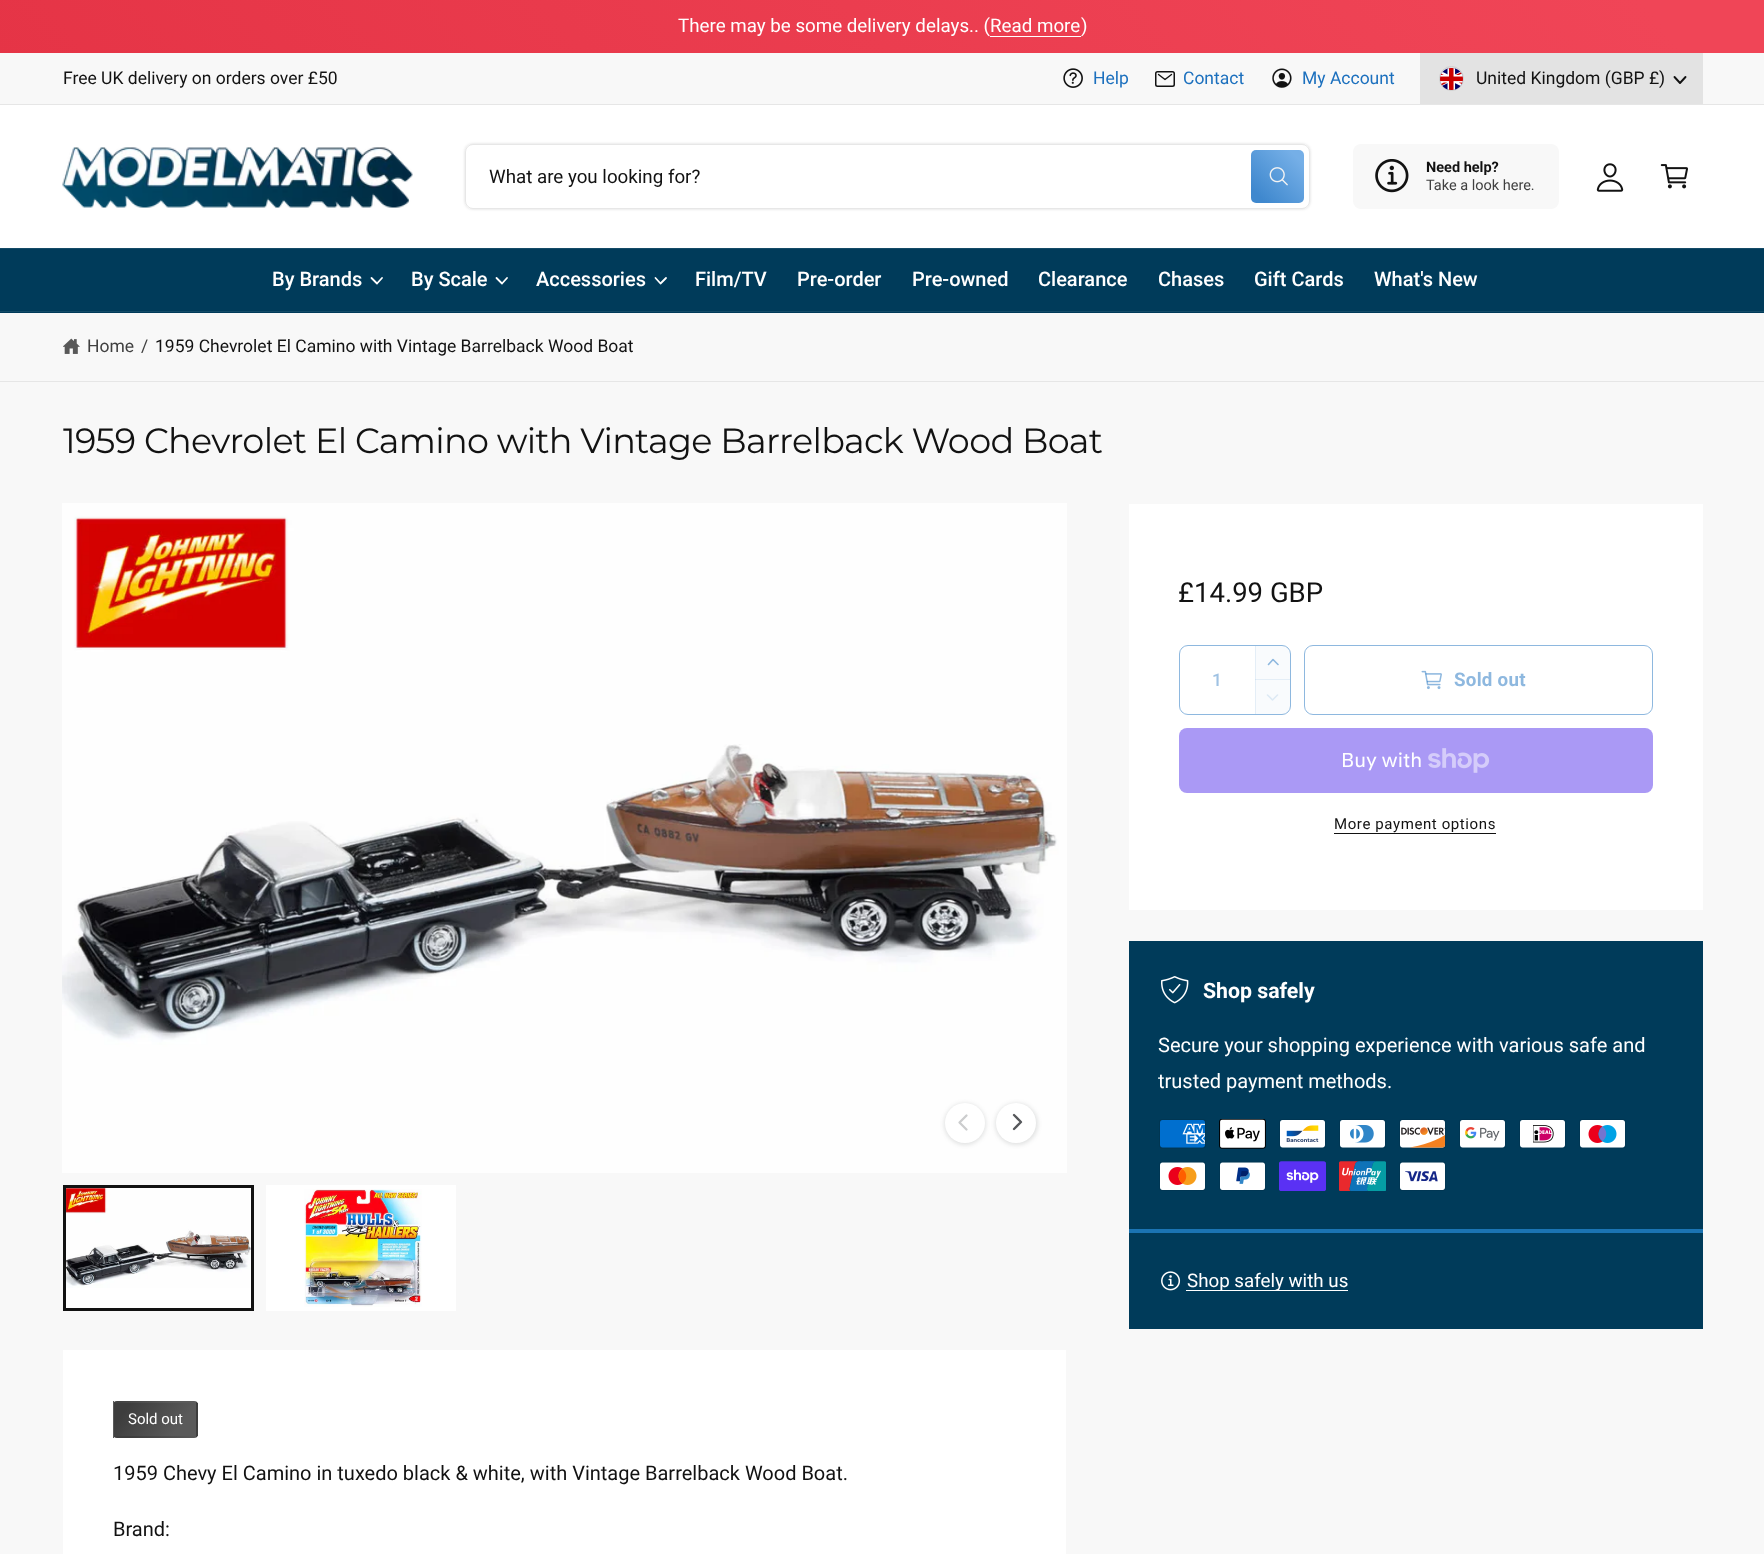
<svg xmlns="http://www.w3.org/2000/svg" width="1764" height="1554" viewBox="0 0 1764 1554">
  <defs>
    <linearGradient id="g1" gradientUnits="userSpaceOnUse" x1="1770" y1="5.9" x2="-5.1" y2="1549"><stop offset="0.04" stop-color="#f04557"/><stop offset="1" stop-color="#dd2739"/></linearGradient>
    <linearGradient id="g2" gradientUnits="userSpaceOnUse" x1="1251" y1="202" x2="1304" y2="150"><stop offset="0.13" stop-color="#3f88ce"/><stop offset="0.86" stop-color="#75afe7"/></linearGradient>
    <clipPath id="clip1"><path d="M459 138H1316V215H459ZM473 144H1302C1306.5 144 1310 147.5 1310 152V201C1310 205.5 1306.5 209 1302 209H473C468.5 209 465 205.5 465 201V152C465 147.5 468.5 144 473 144Z" clip-rule="evenodd"/></clipPath>
    <linearGradient id="g3" gradientUnits="userSpaceOnUse" x1="38" y1="1360" x2="107" y2="1412"><stop offset="0.16" stop-color="#3d3d3d"/><stop offset="0.78" stop-color="#5a5a5a"/></linearGradient>
    <clipPath id="clip2"><rect x="113" y="1401" width="85" height="37" rx="4"/></clipPath>
    <linearGradient id="g4" gradientUnits="userSpaceOnUse" x1="121" y1="1360" x2="189" y2="1412"><stop offset="0.16" stop-color="#3d3d3d"/><stop offset="0.78" stop-color="#5a5a5a"/></linearGradient>
    <linearGradient id="g5" gradientUnits="userSpaceOnUse" x1="203" y1="1360" x2="272" y2="1412"><stop offset="0.16" stop-color="#3d3d3d"/><stop offset="0.78" stop-color="#5a5a5a"/></linearGradient>
    <linearGradient id="g6" gradientUnits="userSpaceOnUse" x1="38" y1="1393" x2="107" y2="1445"><stop offset="0.16" stop-color="#3d3d3d"/><stop offset="0.78" stop-color="#5a5a5a"/></linearGradient>
    <linearGradient id="g7" gradientUnits="userSpaceOnUse" x1="121" y1="1393" x2="189" y2="1445"><stop offset="0.16" stop-color="#3d3d3d"/><stop offset="0.78" stop-color="#5a5a5a"/></linearGradient>
    <linearGradient id="g8" gradientUnits="userSpaceOnUse" x1="203" y1="1393" x2="272" y2="1445"><stop offset="0.16" stop-color="#3d3d3d"/><stop offset="0.78" stop-color="#5a5a5a"/></linearGradient>
    <linearGradient id="g9" gradientUnits="userSpaceOnUse" x1="38" y1="1427" x2="107" y2="1479"><stop offset="0.16" stop-color="#3d3d3d"/><stop offset="0.78" stop-color="#5a5a5a"/></linearGradient>
    <linearGradient id="g10" gradientUnits="userSpaceOnUse" x1="121" y1="1427" x2="189" y2="1479"><stop offset="0.16" stop-color="#3d3d3d"/><stop offset="0.78" stop-color="#5a5a5a"/></linearGradient>
    <linearGradient id="g11" gradientUnits="userSpaceOnUse" x1="203" y1="1427" x2="272" y2="1479"><stop offset="0.16" stop-color="#3d3d3d"/><stop offset="0.78" stop-color="#5a5a5a"/></linearGradient>
  </defs>
  <rect width="100%" height="100%" fill="#f8f8f8"/>
  <path d="M0 0h1764v53H0z" fill="url(#g1)"/>
  <path d="M990 36h91v1H990z" fill="#fff"/>
  <path d="M0 104h1764v1H0z" fill="#e6e6e6"/>
  <image x="1063" y="68" width="20" height="20" href="img/1.png"/>
  <rect x="1155.75" y="71.75" width="18.5" height="14.5" rx="1.75" fill="none" stroke="#121212" stroke-width="1.5"/>
  <path d="M1158.5 74.5L1165 79.5L1171.5 74.5" fill="none" stroke="#121212" stroke-width="1.4" stroke-linecap="round" stroke-linejoin="round"/>
  <image x="1272" y="68" width="20" height="20" href="img/2.png"/>
  <path d="M1420 53h283v51H1420z" fill="#e3e3e3"/>
  <circle cx="1451.5" cy="78.5" r="12" fill="none" stroke="#cecece"/>
  <image x="1440" y="68" width="23" height="22" href="img/3.png"/>
  <path d="M1674.5 77L1680 83L1685.5 77" fill="none" stroke="#121212" stroke-width="1.9" stroke-linecap="round" stroke-linejoin="round"/>
  <path d="M0 105h1764v143H0z" fill="#fff"/>
  <image x="62" y="147" width="351" height="61" href="img/4.png"/>
  <rect x="1251" y="150" width="53" height="53" rx="5" fill="url(#g2)"/>
  <image x="1269" y="167" width="19" height="19" href="img/5.png"/>
  <g clip-path="url(#clip1)">
    <rect x="465" y="144" width="845" height="65" rx="8" fill="#00000026" filter="blur(1.5px)"/>
  </g>
  <rect x="465.5" y="144.5" width="844" height="64" rx="7.5" fill="none" stroke="#1212121a"/>
  <rect x="1353" y="144" width="206" height="65" rx="8" fill="#f8f8f8"/>
  <image x="1375" y="159" width="34" height="34" href="img/6.png"/>
  <image x="1596" y="163" width="28" height="29" href="img/7.png"/>
  <image x="1660" y="164" width="28" height="25" href="img/8.png"/>
  <path d="M0 249h1764v64H0z" fill="#003b5a"/>
  <path d="M0 248h1764v1H0z" fill="#144b67"/>
  <path d="M0 311h1764v1H0z" fill="#144b67"/>
  <path d="M371.5 278L377 283.5L382 278" fill="none" stroke="#fff" stroke-width="1.8" stroke-linecap="round" stroke-linejoin="round"/>
  <path d="M496.5 278L502 283.5L507 278" fill="none" stroke="#fff" stroke-width="1.8" stroke-linecap="round" stroke-linejoin="round"/>
  <path d="M655.5 278L660.5 283.5L666 278" fill="none" stroke="#fff" stroke-width="1.8" stroke-linecap="round" stroke-linejoin="round"/>
  <path d="M0 381h1764v1H0z" fill="#e6e6e6"/>
  <image x="63" y="338" width="17" height="16" href="img/9.png"/>
  <image x="62" y="503" width="1005" height="670" href="img/10.png"/>
  <rect x="944" y="1103" width="42" height="42" rx="21" fill="#3c404326" filter="blur(2px)"/>
  <circle cx="965" cy="1123" r="20" fill="#fff"/>
  <path d="M966.5 1115.5L959.5 1122.5L966.5 1129.5" fill="none" stroke="#cccdce" stroke-width="2.3" stroke-linecap="round" stroke-linejoin="round"/>
  <rect x="995" y="1103" width="43" height="42" rx="21" fill="#3c404326" filter="blur(2px)"/>
  <circle cx="1016" cy="1123" r="20" fill="#fff"/>
  <path d="M1014 1129L1021 1122L1014 1115" fill="none" stroke="#56585b" stroke-width="2.3" stroke-linecap="round" stroke-linejoin="round"/>
  <path d="M66 1288h185v20H66z" fill="#fff"/>
  <image x="66" y="1188" width="185" height="100" href="img/11.png"/>
  <path d="M64.5 1186.5h188v123H64.5z" fill="none" stroke="#121212" stroke-width="3"/>
  <path d="M266 1185h190v126H266z" fill="#fff"/>
  <image x="304" y="1189" width="118" height="118" href="img/12.png"/>
  <path d="M1129 504h574v406H1129z" fill="#fff"/>
  <path d="M1255 645H1282C1286.5 645 1290 648.5 1290 653V680H1255Z" fill="#f9fbfd"/>
  <path d="M1255 645h1v35H1255z" fill="#e4eef7"/>
  <path d="M1255 679h35v1H1255z" fill="#e4eef7"/>
  <path d="M1255 679h1v1H1255z" fill="#d3e3f2"/>
  <path d="M1278 664.5L1273 659.5L1268.5 664.5" fill="none" stroke="#8eb8df" stroke-width="1.6" stroke-linecap="round" stroke-linejoin="round"/>
  <path d="M1255 680H1290V707C1290 711.5 1286.5 715 1282 715H1255Z" fill="#f9fbfd"/>
  <path d="M1255 680h1v35H1255z" fill="#e4eef7"/>
  <path d="M1267.5 695L1272.5 700L1277.5 695" fill="none" stroke="#ddeaf5" stroke-width="1.6" stroke-linecap="round" stroke-linejoin="round"/>
  <rect x="1179.5" y="645.5" width="111" height="69" rx="8.5" fill="none" stroke="#fff"/>
  <rect x="1179.5" y="645.5" width="111" height="69" rx="8.5" fill="none" stroke="#8eb8df"/>
  <image x="1421" y="670" width="21" height="20" href="img/13.png"/>
  <rect x="1304.5" y="645.5" width="348" height="69" rx="8.5" fill="none" stroke="#8eb8df"/>
  <rect x="1179" y="728" width="474" height="65" rx="8" fill="#aa99f5"/>
  <image x="1428" y="748" width="62" height="25" href="img/14.png"/>
  <path d="M1334 833h162v1H1334z" fill="#121212"/>
  <path d="M1129 941h574v388H1129z" fill="#003b5a"/>
  <image x="1161" y="976" width="28" height="28" href="img/15.png"/>
  <image x="1159" y="1119" width="47" height="30" href="img/16.png"/>
  <image x="1219" y="1119" width="47" height="30" href="img/17.png"/>
  <image x="1279" y="1119" width="47" height="30" href="img/18.png"/>
  <image x="1339" y="1119" width="47" height="30" href="img/19.png"/>
  <image x="1399" y="1119" width="47" height="30" href="img/20.png"/>
  <image x="1459" y="1119" width="47" height="30" href="img/21.png"/>
  <image x="1519" y="1119" width="47" height="30" href="img/22.png"/>
  <image x="1579" y="1119" width="47" height="30" href="img/23.png"/>
  <image x="1159" y="1161" width="47" height="30" href="img/24.png"/>
  <image x="1219" y="1161" width="47" height="30" href="img/25.png"/>
  <image x="1279" y="1161" width="47" height="30" href="img/26.png"/>
  <image x="1339" y="1161" width="47" height="30" href="img/27.png"/>
  <image x="1399" y="1161" width="47" height="30" href="img/28.png"/>
  <path d="M1129 1229h574v4H1129z" fill="#1b74b3"/>
  <image x="1161" y="1271" width="20" height="20" href="img/29.png"/>
  <path d="M1186 1290h162v1H1186z" fill="#fff"/>
  <path d="M63 1350h1003v204H63z" fill="#fff"/>
  <path d="M113 1401h1v2H113z" fill="url(#g3)"/>
  <g clip-path="url(#clip2)">
    <path d="M114 1401h82v2H114z" fill="url(#g4)"/>
    <path d="M196 1401h2v2H196z" fill="url(#g5)"/>
  </g>
  <path d="M113 1403h1v33H113z" fill="url(#g6)"/>
  <path d="M114 1403h82v33H114z" fill="url(#g7)"/>
  <path d="M196 1403h2v33H196z" fill="url(#g8)"/>
  <path d="M113 1436h1v2H113z" fill="url(#g9)"/>
  <g clip-path="url(#clip2)">
    <path d="M114 1436h82v2H114z" fill="url(#g10)"/>
    <path d="M196 1436h2v2H196z" fill="url(#g11)"/>
  </g>
  <g font-family="Roboto" font-size="18.75" fill="#fff">
    <text x="678" y="32">There may be some delivery delays.. (Read more</text>
    <text x="1081" y="32">)</text>
  </g>
  <text x="63" y="84" font-family="Roboto" font-size="17.5" fill="#121212">Free UK delivery on orders over £50</text>
  <g font-family="Roboto" font-size="17.5" fill="#1c70be">
    <text x="1093" y="84">Help</text>
    <text x="1183" y="84">Contact</text>
    <text x="1302" y="84">My Account</text>
  </g>
  <text x="1476" y="84" font-family="Roboto" font-size="17.5" fill="#121212">United Kingdom (GBP £)</text>
  <text x="489" y="183" font-family="Roboto" font-size="18.75" fill="#121212">What are you looking for?</text>
  <text x="1426" y="172" font-family="Roboto" font-size="14.5" font-weight="bold" fill="#121212">Need help?</text>
  <text x="1426" y="190" font-family="Roboto" font-size="14.5" fill="#404040">Take a look here.</text>
  <g font-family="Roboto" font-size="20" font-weight="500" fill="#fff">
    <text x="272" y="286">By Brands</text>
    <text x="411" y="286">By Scale</text>
    <text x="536" y="286">Accessories</text>
    <text x="695" y="286">Film/TV</text>
    <text x="797" y="286">Pre-order</text>
    <text x="912" y="286">Pre-owned</text>
    <text x="1038" y="286">Clearance</text>
    <text x="1158" y="286">Chases</text>
    <text x="1254" y="286">Gift Cards</text>
    <text x="1374" y="286">What's New</text>
  </g>
  <g font-family="Roboto" font-size="17.5" fill="#404040">
    <text x="87" y="352">Home</text>
    <text x="141" y="352">/</text>
  </g>
  <text x="155" y="352" font-family="Roboto" font-size="17.5" fill="#121212">1959 Chevrolet El Camino with Vintage Barrelback Wood Boat</text>
  <text x="63" y="453" font-family="Montserrat" font-size="35" letter-spacing="-0.67" fill="#121212">1959 Chevrolet El Camino with Vintage Barrelback Wood Boat</text>
  <text x="1178" y="602" font-family="Roboto" font-size="27.5" fill="#121212">£14.99 GBP</text>
  <text x="1212" y="686" font-family="Roboto" font-size="17.5" font-weight="500" fill="#9fc2e3">1</text>
  <text x="1454" y="686" font-family="Roboto" font-size="18.75" font-weight="bold" letter-spacing="0.25" fill="#8eb8df">Sold out</text>
  <text x="1341" y="767" font-family="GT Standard" font-size="20" fill="#fff">Buy with</text>
  <text x="1334" y="829" font-family="Roboto" font-size="15" letter-spacing="0.6" fill="#121212">More payment options</text>
  <text x="1203" y="998" font-family="Roboto" font-size="21.25" font-weight="bold" fill="#fff">Shop safely</text>
  <g font-family="Roboto" font-size="20" fill="#fff">
    <text x="1158" y="1052">Secure your shopping experience with various safe and</text>
    <text x="1158" y="1088">trusted payment methods.</text>
  </g>
  <text x="1187" y="1287" font-family="Roboto" font-size="18.75" fill="#fff">Shop safely with us</text>
  <text x="128" y="1424" font-family="Roboto" font-size="15" fill="#fff">Sold out</text>
  <g font-family="Roboto" font-size="20" fill="#121212">
    <text x="113" y="1480">1959 Chevy El Camino in tuxedo black &amp; white, with Vintage Barrelback Wood Boat.</text>
    <text x="113" y="1536">Brand:</text>
  </g>
</svg>
